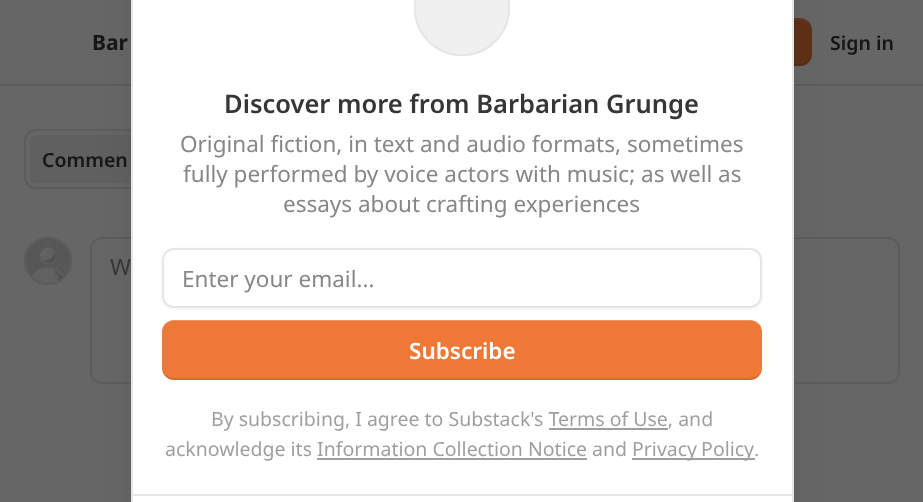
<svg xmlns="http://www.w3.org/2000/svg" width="923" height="502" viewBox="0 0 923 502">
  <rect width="100%" height="100%" fill="#666"/>
  <path d="M0 84h923v2H0z" fill="#5c5c5c"/>
  <rect x="696" y="18" width="116" height="48" rx="12" fill="#5f3015"/>
  <path d="M696 52C696 69 711 66 723 66H785C797 66 812 69 812 52C812 59 806 64 800 64H708C701 64 696 59 696 52Z" fill="#0000001a"/>
  <path d="M708 20H800C806 20 812 25 812 32C812 15 797 18 785 18H723C711 18 696 15 696 32C696 25 701 20 708 20Z" fill="#66666633"/>
  <rect x="25" y="130" width="252" height="58" rx="11" fill="none" stroke="#5c5c5c" stroke-width="2"/>
  <rect x="30" y="135" width="128" height="48" rx="6" fill="#606060"/>
  <circle cx="48" cy="261" r="23" fill="none" stroke="#5c5c5c" stroke-width="2"/>
  <image x="24" y="237" width="48" height="48" href="img/1.png"/>
  <circle cx="48" cy="261" r="23" fill="none" stroke="#5c5c5c" stroke-width="2"/>
  <rect x="91" y="238" width="808" height="145" rx="11" fill="none" stroke="#5c5c5c" stroke-width="2"/>
  <rect x="138" y="-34" width="648" height="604" rx="11" fill="#0000001a" filter="blur(19px)"/>
  <path d="M132 -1h661v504H132z" fill="#fff" stroke="#e6e6e6" stroke-width="2"/>
  <circle cx="462" cy="8" r="47" fill="none" stroke="#e6e6e6" stroke-width="2"/>
  <circle cx="462" cy="8" r="47" fill="#f0f0f0" stroke="#e6e6e6" stroke-width="2"/>
  <rect x="162" y="249" width="600" height="60" rx="12" fill="#0000000d" filter="blur(1.5px)"/>
  <rect x="163" y="249" width="598" height="58" rx="11" fill="#fff" stroke="#e6e6e6" stroke-width="2"/>
  <rect x="162" y="320" width="600" height="60" rx="12" fill="#ee7835"/>
  <path d="M162 366C162 373 166 380 174 380H750C758 380 762 373 762 366C762 373 757 378 750 378H174C167 378 162 373 162 366Z" fill="#0000001a"/>
  <path d="M174 321H750C757 321 762 326 762 333C762 326 757 320 750 320H174C167 320 162 326 162 333C162 326 167 321 174 321Z" fill="#ffffff33"/>
  <path d="M549 428h119v2H549z" fill="#9e9f9f"/>
  <path d="M632 458h123v2H632z" fill="#9e9f9f"/>
  <path d="M317 458h270v2H317z" fill="#9e9f9f"/>
  <path d="M132 494h660v2H132z" fill="#e6e6e6"/>
  <text x="92" y="50" font-family="Noto Sans" font-size="21" font-weight="bold" fill="#161616">Bar</text>
  <g font-family="Noto Sans" font-size="19.5" font-weight="600" fill="#161616">
    <text x="830" y="50">Sign in</text>
    <text x="42" y="167">Commen</text>
  </g>
  <text x="110" y="275" font-family="Noto Sans" font-size="22.5" fill="#363636">W</text>
  <text x="224" y="113" font-family="Noto Sans" font-size="25.5" font-weight="600" fill="#363636">Discover more from Barbarian Grunge</text>
  <g font-family="Noto Sans" font-size="22.5" fill="#868787">
    <text x="180" y="152">Original fiction, in text and audio formats, sometimes</text>
    <text x="183" y="182">fully performed by voice actors with music; as well as</text>
    <text x="283" y="212">essays about crafting experiences</text>
    <text x="182" y="287">Enter your email...</text>
  </g>
  <text x="409" y="359" font-family="Noto Sans" font-size="22.5" font-weight="600" fill="#fff">Subscribe</text>
  <g font-family="Noto Sans" font-size="19.5" fill="#9e9f9f">
    <text x="211" y="426">By subscribing, I agree to Substack's Terms of Use, and</text>
    <text x="165" y="456">acknowledge its Information Collection Notice and</text>
    <text x="632" y="456" word-spacing="-1">Privacy Policy</text>
    <text x="754" y="456">.</text>
  </g>
</svg>
